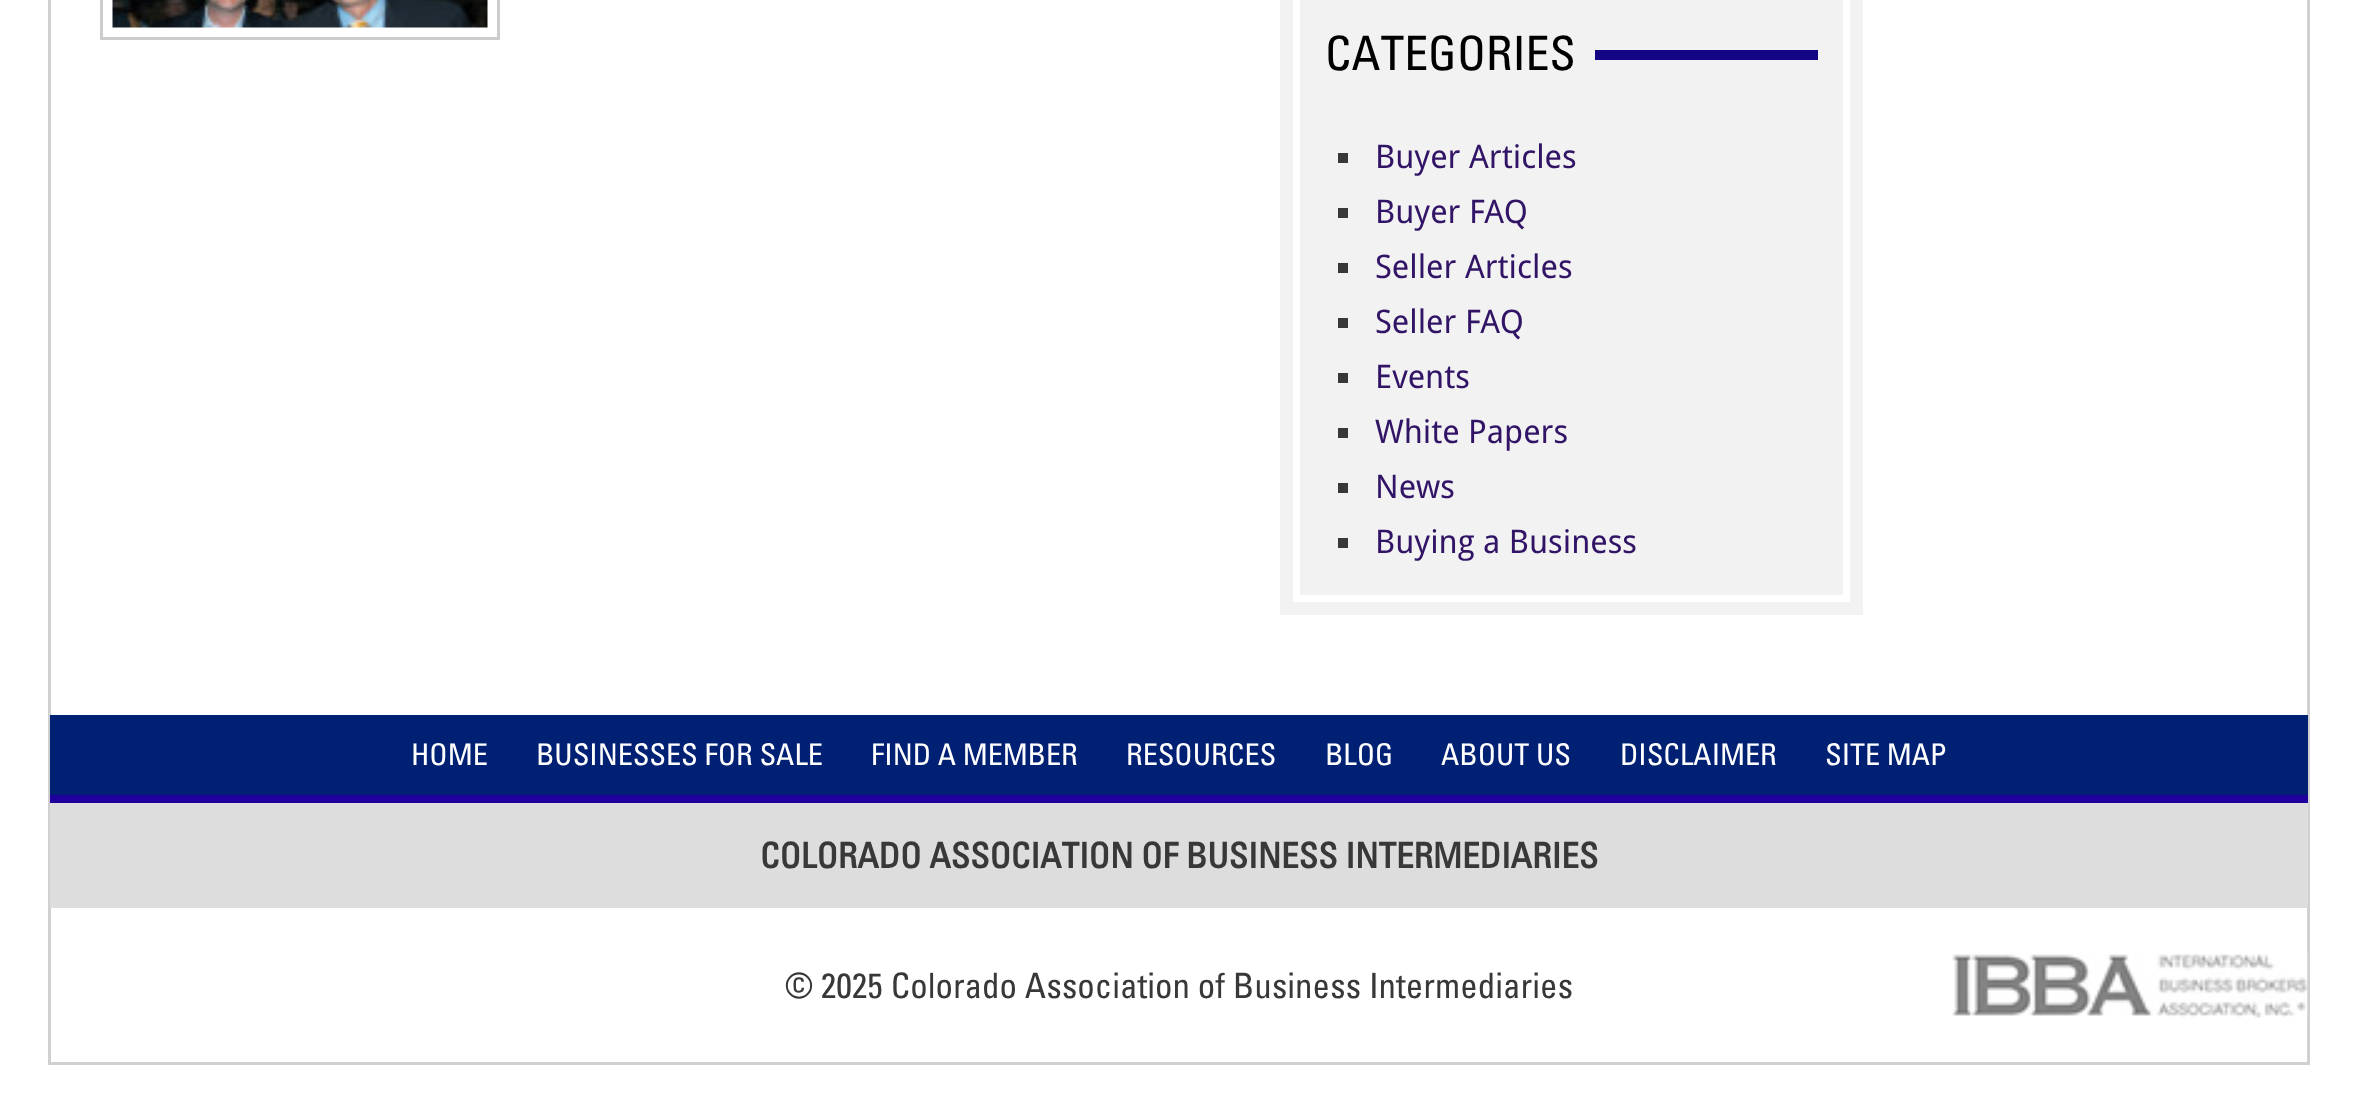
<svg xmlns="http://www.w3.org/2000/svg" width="2356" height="1114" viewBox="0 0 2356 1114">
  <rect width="100%" height="100%" fill="#fff"/>
  <path d="M49.5 -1.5h2259v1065H49.5z" fill="none" stroke="#d0d0d0" stroke-width="3"/>
  <path d="M101.5 -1.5h397v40H101.5z" fill="none" stroke="#ccc" stroke-width="3"/>
  <image x="112" y="0" width="376" height="28" href="img/1.png"/>
  <path d="M1286.5 -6.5h570v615H1286.5z" fill="none" stroke="#f2f2f2" stroke-width="13"/>
  <path d="M1300 0h543v595H1300z" fill="#f2f2f2"/>
  <path d="M1595 50h223v10H1595z" fill="#130485"/>
  <path d="M1338 153h10v10H1338z" fill="#383838"/>
  <path d="M1338 208h10v10H1338z" fill="#383838"/>
  <path d="M1338 263h10v10H1338z" fill="#383838"/>
  <path d="M1338 318h10v10H1338z" fill="#383838"/>
  <path d="M1338 373h10v10H1338z" fill="#383838"/>
  <path d="M1338 428h10v10H1338z" fill="#383838"/>
  <path d="M1338 483h10v10H1338z" fill="#383838"/>
  <path d="M1338 538h10v10H1338z" fill="#383838"/>
  <path d="M50 715h2258v80H50z" fill="#002073"/>
  <path d="M50 795h2258v8H50z" fill="#20009d"/>
  <path d="M50 803h2258v105H50z" fill="#ddd"/>
  <image x="1952" y="952" width="356" height="66" href="img/2.png"/>
  <text x="1325" y="70" font-family="'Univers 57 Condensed'" font-size="47.5" fill="#000">CATEGORIES</text>
  <g font-family="Droid Sans" font-size="32.5" fill="#311466">
    <text x="1375" y="168">Buyer Articles</text>
    <text x="1375" y="223">Buyer FAQ</text>
    <text x="1375" y="278">Seller Articles</text>
    <text x="1375" y="333">Seller FAQ</text>
    <text x="1375" y="388">Events</text>
    <text x="1375" y="443">White Papers</text>
    <text x="1375" y="498">News</text>
    <text x="1375" y="553">Buying a Business</text>
  </g>
  <g font-family="'Univers 57 Condensed'" font-size="30" fill="#fff">
    <text x="411" y="765">HOME</text>
    <text x="536" y="765">BUSINESSES FOR SALE</text>
    <text x="871" y="765">FIND A MEMBER</text>
    <text x="1126" y="765">RESOURCES</text>
    <text x="1325" y="765">BLOG</text>
    <text x="1441" y="765">ABOUT US</text>
    <text x="1620" y="765">DISCLAIMER</text>
    <text x="1825" y="765">SITE MAP</text>
  </g>
  <text x="760" y="868" font-family="'Univers 57 Condensed'" font-size="35" font-weight="bold" fill="#383838">COLORADO ASSOCIATION OF BUSINESS INTERMEDIARIES</text>
  <text x="785" y="998" font-family="'Univers 57 Condensed'" font-size="35" fill="#383838">© 2025 Colorado Association of Business Intermediaries</text>
</svg>
